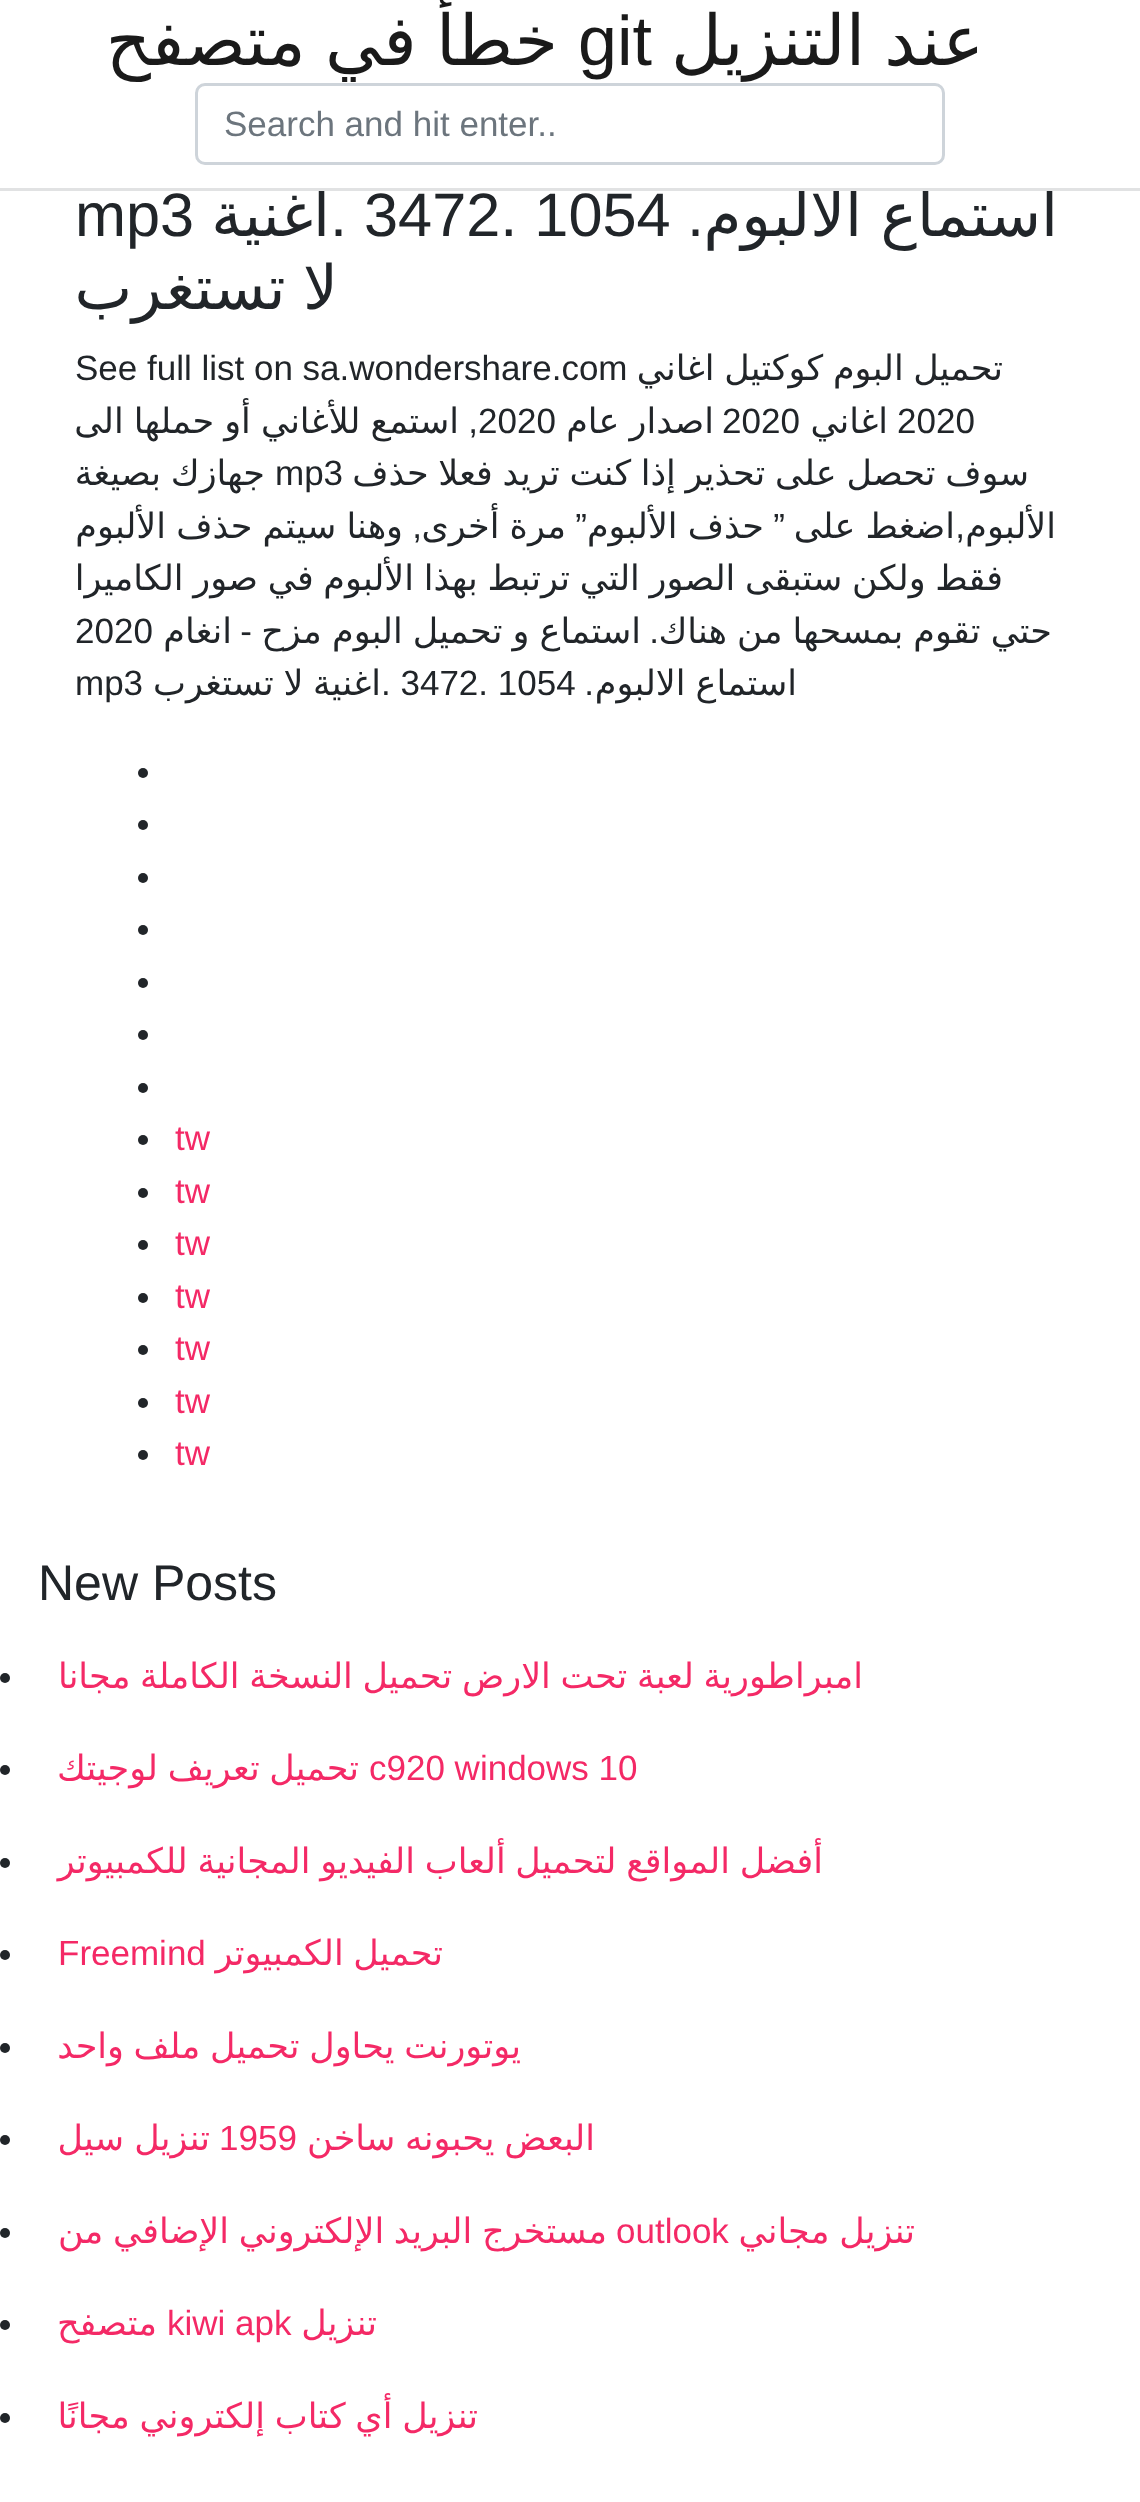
<svg xmlns="http://www.w3.org/2000/svg" width="1140" height="2502" viewBox="0 0 1140 2502">
  <rect width="100%" height="100%" fill="#fff"/>
  <rect x="196.5" y="84.5" width="747" height="79" rx="8.5" fill="none" stroke="#ced4da" stroke-width="3"/>
  <circle cx="143" cy="773" r="5" fill="#212529"/>
  <circle cx="143" cy="825" r="5" fill="#212529"/>
  <circle cx="143" cy="878" r="5" fill="#212529"/>
  <circle cx="143" cy="930" r="5" fill="#212529"/>
  <circle cx="143" cy="983" r="5" fill="#212529"/>
  <circle cx="143" cy="1035" r="5" fill="#212529"/>
  <circle cx="143" cy="1088" r="5" fill="#212529"/>
  <circle cx="143" cy="1140" r="5" fill="#212529"/>
  <circle cx="143" cy="1193" r="5" fill="#212529"/>
  <circle cx="143" cy="1245" r="5" fill="#212529"/>
  <circle cx="143" cy="1298" r="5" fill="#212529"/>
  <circle cx="143" cy="1350" r="5" fill="#212529"/>
  <circle cx="143" cy="1403" r="5" fill="#212529"/>
  <circle cx="143" cy="1455" r="5" fill="#212529"/>
  <circle cx="5" cy="1678" r="5" fill="#212529"/>
  <circle cx="5" cy="1770" r="5" fill="#212529"/>
  <circle cx="5" cy="1863" r="5" fill="#212529"/>
  <circle cx="5" cy="1955" r="5" fill="#212529"/>
  <circle cx="5" cy="2048" r="5" fill="#212529"/>
  <circle cx="5" cy="2140" r="5" fill="#212529"/>
  <circle cx="5" cy="2233" r="5" fill="#212529"/>
  <circle cx="5" cy="2325" r="5" fill="#212529"/>
  <circle cx="5" cy="2418" r="5" fill="#212529"/>
  <text x="984" y="65" word-spacing="-3" font-family="DejaVu Sans" font-size="70" direction="rtl" fill="#1a1a1a">عند التنزيل</text>
  <text x="578" y="65" font-family="Liberation Sans" font-size="70" fill="#1a1a1a">git</text>
  <text x="558" y="65" word-spacing="-3" font-family="DejaVu Sans" font-size="70" direction="rtl" fill="#1a1a1a">خطأ في متصفح</text>
  <text x="224" y="136" font-family="Liberation Sans" font-size="35" fill="#6c757d">Search and hit enter..</text>
  <text x="1058" y="236" word-spacing="-1" font-family="DejaVu Sans" font-size="61.25" direction="rtl" fill="#212529">استماع الالبوم</text>
  <text x="704" y="236" font-family="Liberation Sans" font-size="61.25" direction="rtl" fill="#212529">.</text>
  <text x="330" y="236" font-family="Liberation Sans" font-size="61.25" fill="#212529">. 3472. 1054</text>
  <text x="330" y="236" font-family="DejaVu Sans" font-size="61.25" direction="rtl" fill="#212529">اغنية</text>
  <path d="M0 188h1140v3H0z" fill="#e1e2e3"/>
  <text x="75" y="236" font-family="Liberation Sans" font-size="61.25" fill="#212529">mp3</text>
  <text x="338" y="309" word-spacing="-2" font-family="DejaVu Sans" font-size="61.25" direction="rtl" fill="#212529">لا تستغرب</text>
  <text x="1003" y="380" word-spacing="-1.4" font-family="DejaVu Sans" font-size="35" direction="rtl" fill="#212529">تحميل البوم كوكتيل اغاني</text>
  <g font-family="Liberation Sans" font-size="35" fill="#212529">
    <text x="75" y="380">See full list on sa.wondershare.com</text>
    <text x="897" y="433">2020</text>
  </g>
  <text x="888" y="433" font-family="DejaVu Sans" font-size="35" direction="rtl" fill="#212529">اغاني</text>
  <text x="722" y="433" font-family="Liberation Sans" font-size="35" fill="#212529">2020</text>
  <text x="714" y="433" word-spacing="-1" font-family="DejaVu Sans" font-size="35" direction="rtl" fill="#212529">اصدار عام</text>
  <text x="478" y="433" font-family="Liberation Sans" font-size="35" fill="#212529">2020</text>
  <text x="478" y="433" font-family="Liberation Sans" font-size="35" direction="rtl" fill="#212529">,</text>
  <g font-family="DejaVu Sans" font-size="35" direction="rtl" fill="#212529">
    <text x="459" y="433" word-spacing="-1">استمع للأغاني أو حملها الى</text>
    <text x="1029" y="485" word-spacing="-1.4">سوف تحصل على تحذير إذا كنت تريد فعلا حذف</text>
  </g>
  <text x="275" y="485" font-family="Liberation Sans" font-size="35" fill="#212529">mp3</text>
  <g font-family="DejaVu Sans" font-size="35" direction="rtl" fill="#212529">
    <text x="265" y="485" word-spacing="-1.4">جهازك بصيغة</text>
    <text x="1056" y="538">الألبوم</text>
    <text x="955" y="538" word-spacing="-1">اضغط على</text>
  </g>
  <text x="785" y="538" font-family="Liberation Sans" font-size="35" direction="rtl" fill="#212529">”</text>
  <text x="764" y="538" word-spacing="-1" font-family="DejaVu Sans" font-size="35" direction="rtl" fill="#212529">حذف الألبوم</text>
  <text x="587" y="538" font-family="Liberation Sans" font-size="35" direction="rtl" fill="#212529">”</text>
  <g font-family="DejaVu Sans" font-size="35" direction="rtl" fill="#212529">
    <text x="566" y="538" word-spacing="-1">مرة أخرى</text>
    <text x="403" y="538" word-spacing="-1">وهنا سيتم حذف الألبوم</text>
  </g>
  <g font-family="Liberation Sans" font-size="35" direction="rtl" fill="#212529">
    <text x="965" y="538">,</text>
    <text x="422" y="538">,</text>
  </g>
  <g font-family="DejaVu Sans" font-size="35" direction="rtl" fill="#212529">
    <text x="1003" y="590" word-spacing="-1.4">فقط ولكن ستبقى الصور التي ترتبط بهذا الألبوم في صور الكاميرا</text>
    <text x="1052" y="643" word-spacing="-1">حتي تقوم بمسحها من هناك</text>
    <text x="641" y="643" word-spacing="-1">استماع و تحميل البوم مزح</text>
  </g>
  <text x="252" y="643" font-family="Liberation Sans" font-size="35" direction="rtl" fill="#212529">-</text>
  <text x="232" y="643" font-family="DejaVu Sans" font-size="35" direction="rtl" fill="#212529">انغام</text>
  <text x="75" y="643" font-family="Liberation Sans" font-size="35" fill="#212529">2020</text>
  <text x="659" y="643" font-family="Liberation Sans" font-size="35" direction="rtl" fill="#212529">.</text>
  <text x="797" y="695" word-spacing="-1" font-family="DejaVu Sans" font-size="35" direction="rtl" fill="#212529">استماع الالبوم</text>
  <text x="594" y="695" font-family="Liberation Sans" font-size="35" direction="rtl" fill="#212529">.</text>
  <text x="381" y="695" font-family="Liberation Sans" font-size="35" fill="#212529">. 3472. 1054</text>
  <text x="381" y="695" word-spacing="-1.4" font-family="DejaVu Sans" font-size="35" direction="rtl" fill="#212529">اغنية لا تستغرب</text>
  <text x="75" y="695" font-family="Liberation Sans" font-size="35" fill="#212529">mp3</text>
  <g font-family="Liberation Sans" font-size="35" fill="#f42966">
    <text x="175" y="1150">tw</text>
    <text x="175" y="1203">tw</text>
    <text x="175" y="1255">tw</text>
    <text x="175" y="1308">tw</text>
    <text x="175" y="1360">tw</text>
    <text x="175" y="1413">tw</text>
    <text x="175" y="1465">tw</text>
  </g>
  <text x="38" y="1600" font-family="Liberation Sans" font-size="50" fill="#212529">New Posts</text>
  <text x="863" y="1688" word-spacing="-1.4" font-family="DejaVu Sans" font-size="35" direction="rtl" fill="#f42966">امبراطورية لعبة تحت الارض تحميل النسخة الكاملة مجانا</text>
  <text x="369" y="1780" font-family="Liberation Sans" font-size="35" fill="#f42966">c920 windows 10</text>
  <g font-family="DejaVu Sans" font-size="35" direction="rtl" fill="#f42966">
    <text x="359" y="1780" word-spacing="-1.4">تحميل تعريف لوجيتك</text>
    <text x="823" y="1873" word-spacing="-1.4">أفضل المواقع لتحميل ألعاب الفيديو المجانية للكمبيوتر</text>
    <text x="443" y="1965" word-spacing="-1.4">تحميل الكمبيوتر</text>
  </g>
  <text x="58" y="1965" font-family="Liberation Sans" font-size="35" fill="#f42966">Freemind</text>
  <g font-family="DejaVu Sans" font-size="35" direction="rtl" fill="#f42966">
    <text x="521" y="2058" word-spacing="-1.4">يوتورنت يحاول تحميل ملف واحد</text>
    <text x="595" y="2150" word-spacing="-1.4">البعض يحبونه ساخن</text>
  </g>
  <text x="219" y="2150" font-family="Liberation Sans" font-size="35" fill="#f42966">1959</text>
  <g font-family="DejaVu Sans" font-size="35" direction="rtl" fill="#f42966">
    <text x="210" y="2150" word-spacing="-1">تنزيل سيل</text>
    <text x="915" y="2243" word-spacing="-1.4">تنزيل مجاني</text>
  </g>
  <text x="616" y="2243" font-family="Liberation Sans" font-size="35" fill="#f42966">outlook</text>
  <g font-family="DejaVu Sans" font-size="35" direction="rtl" fill="#f42966">
    <text x="607" y="2243" word-spacing="-1.4">مستخرج البريد الإلكتروني الإضافي من</text>
    <text x="377" y="2335">تنزيل</text>
  </g>
  <text x="167" y="2335" font-family="Liberation Sans" font-size="35" fill="#f42966">kiwi apk</text>
  <g font-family="DejaVu Sans" font-size="35" direction="rtl" fill="#f42966">
    <text x="157" y="2335">متصفح</text>
    <text x="478" y="2428" word-spacing="-1.4">تنزيل أي كتاب إلكتروني مجانًا</text>
  </g>
</svg>
